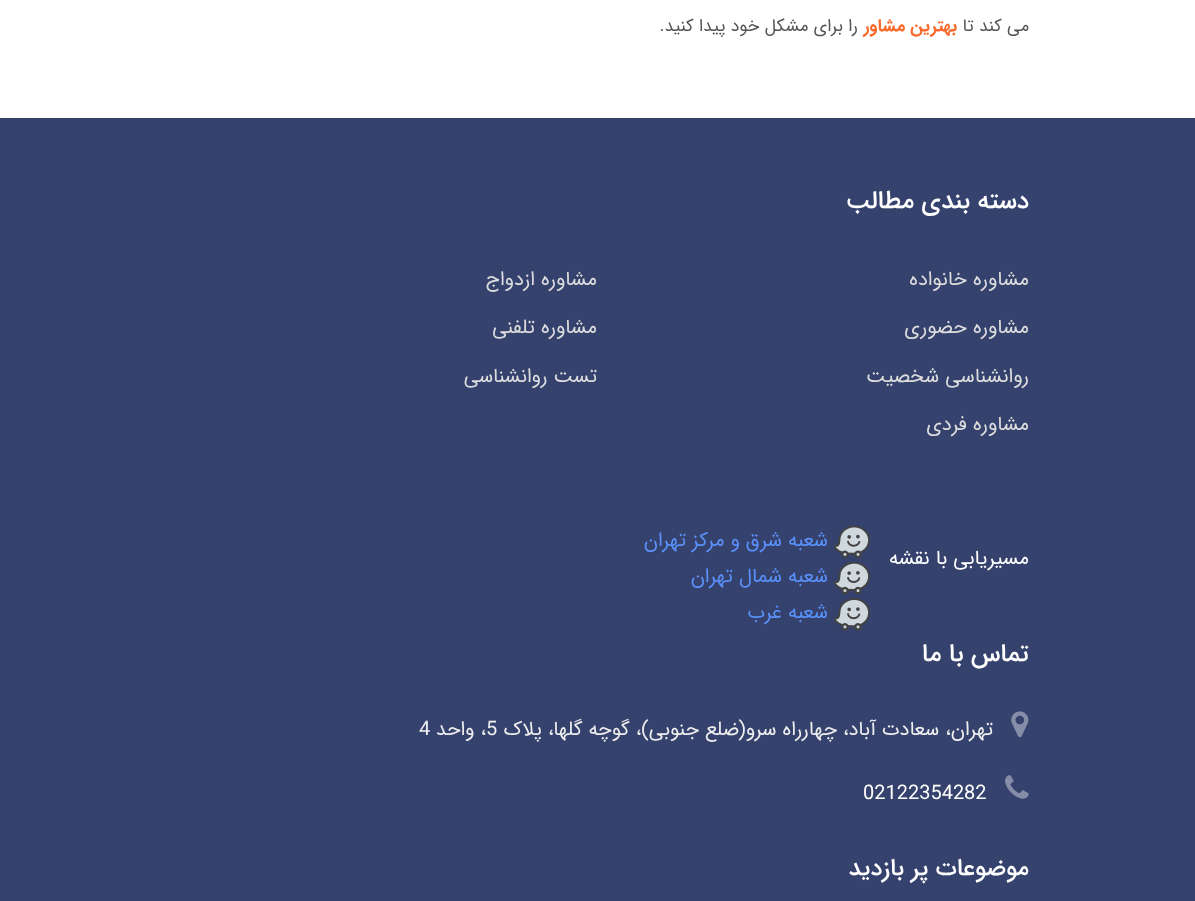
<svg xmlns="http://www.w3.org/2000/svg" width="1195" height="901" viewBox="0 0 1195 901">
  <rect width="100%" height="100%" fill="#fff"/>
  <path d="M0 118h1195v783H0z" fill="#35426d"/>
  <image x="834" y="525" width="36" height="34" href="img/1.png"/>
  <image x="834" y="561" width="36" height="34" href="img/2.png"/>
  <image x="834" y="598" width="36" height="33" href="img/3.png"/>
  <image x="1011" y="711" width="18" height="27" href="img/4.png"/>
  <image x="1005" y="775" width="24" height="24" href="img/5.png"/>
  <text x="1029" y="31" font-family="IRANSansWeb" font-size="17.5" direction="rtl" fill="#545454">می کند تا</text>
  <text x="957" y="31" font-family="IRANSansWeb" font-size="17.5" font-weight="bold" direction="rtl" fill="#f96a2c">بهترین مشاور</text>
  <text x="858" y="31" font-family="IRANSansWeb" font-size="17.5" direction="rtl" fill="#545454">را برای مشکل خود پیدا کنید.</text>
  <text x="1029" y="208" font-family="IRANSansWeb" font-size="25" font-weight="500" direction="rtl" fill="#fff">دسته بندی مطالب</text>
  <g font-family="IRANSansWeb" font-size="20" direction="rtl" fill="#ddd">
    <text x="1029" y="285">مشاوره خانواده</text>
    <text x="597" y="285">مشاوره ازدواج</text>
    <text x="1029" y="333">مشاوره حضوری</text>
    <text x="597" y="333">مشاوره تلفنی</text>
    <text x="1029" y="382">روانشناسی شخصیت</text>
    <text x="597" y="382">تست روانشناسی</text>
    <text x="1029" y="430">مشاوره فردی</text>
  </g>
  <text x="1029" y="564" font-family="IRANSansWeb" font-size="20" direction="rtl" fill="#fff">مسیریابی با نقشه</text>
  <g font-family="IRANSansWeb" font-size="20" direction="rtl" fill="#5a90f9">
    <text x="828" y="546">شعبه شرق و مرکز تهران</text>
    <text x="828" y="582">شعبه شمال تهران</text>
    <text x="828" y="618">شعبه غرب</text>
  </g>
  <text x="1029" y="661" font-family="IRANSansWeb" font-size="25" font-weight="500" direction="rtl" fill="#fff">تماس با ما</text>
  <text x="993" y="735" font-family="IRANSansWeb" font-size="20" direction="rtl" fill="#eee">تهران، سعادت آباد، چهارراه سرو(ضلع جنوبی)، گوچه گلها، پلاک</text>
  <text x="486" y="735" font-family="IRANSansWeb" font-size="20" fill="#eee">5</text>
  <text x="486" y="735" font-family="IRANSansWeb" font-size="20" direction="rtl" fill="#eee">، واحد</text>
  <text x="419" y="735" font-family="IRANSansWeb" font-size="20" fill="#eee">4</text>
  <text x="863" y="799" font-family="IRANSansWeb" font-size="20" fill="#fff">02122354282</text>
  <text x="1029" y="875" font-family="IRANSansWeb" font-size="24" font-weight="500" direction="rtl" fill="#fff">موضوعات پر بازدید</text>
</svg>
